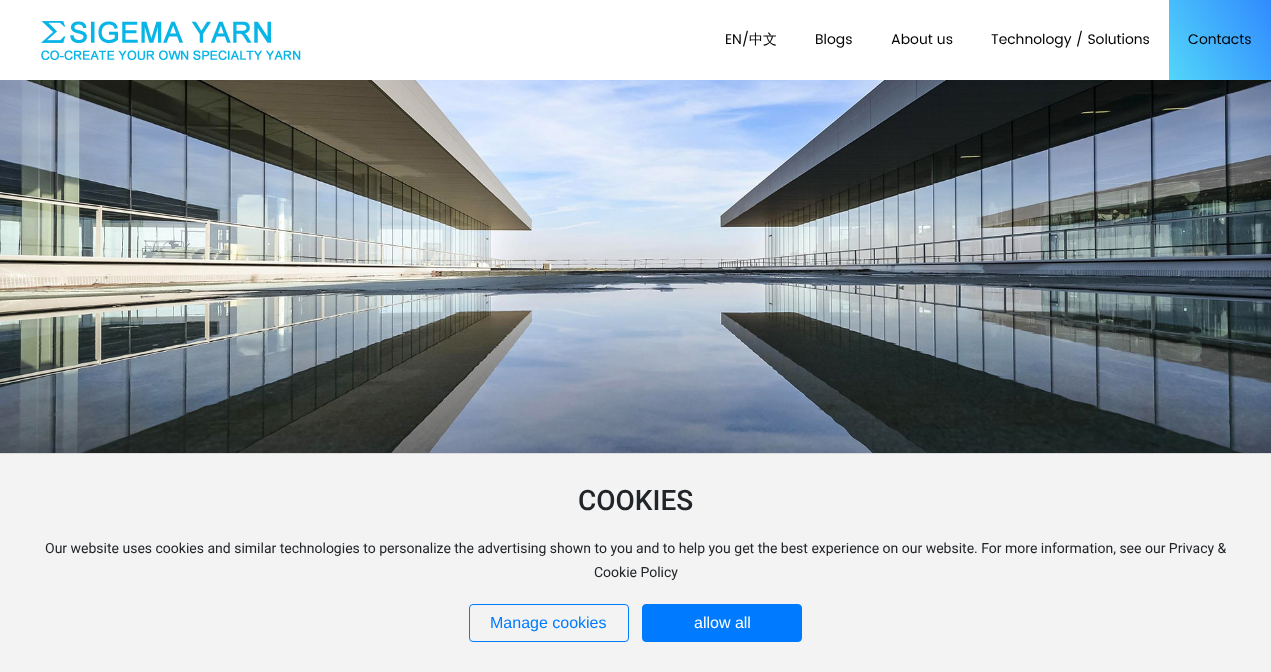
<svg xmlns="http://www.w3.org/2000/svg" width="1271" height="672" viewBox="0 0 1271 672">
  <defs>
    <linearGradient id="g1" gradientUnits="userSpaceOnUse" x1="1165" y1="73" x2="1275" y2="6.9"><stop offset="0" stop-color="#52d6f9"/><stop offset="1" stop-color="#318aff"/></linearGradient>
  </defs>
  <rect width="100%" height="100%" fill="#fff"/>
  <image x="41" y="21" width="260" height="39" href="img/1.png"/>
  <path d="M1169 0h102v80H1169z" fill="url(#g1)"/>
  <image x="0" y="80" width="1271" height="373" href="img/2.png"/>
  <path d="M21 470h1229v177H21z" fill="#00000033" filter="blur(25px)"/>
  <path d="M0 454h1271v218H0z" fill="#f3f3f3"/>
  <path d="M0 453h1271v1H0z" fill="#ddd"/>
  <rect x="469.5" y="604.5" width="159" height="37" rx="3.5" fill="none" stroke="#007bff"/>
  <rect x="642.5" y="604.5" width="159" height="37" rx="3.5" fill="#007bff" stroke="#007bff"/>
  <text x="725" y="44" font-family="Poppins" font-size="14" fill="#000">EN/</text>
  <text x="749" y="44" font-family="WenQuanYi Zen Hei" font-size="14" font-weight="500" fill="#000">中文</text>
  <g font-family="Poppins" font-size="14" fill="#000">
    <text x="815" y="44">Blogs</text>
    <text x="891" y="44">About us</text>
    <text x="991" y="44">Technology / Solutions</text>
    <text x="1188" y="44">Contacts</text>
  </g>
  <text x="578" y="510" font-family="Roboto" font-size="28" font-weight="500" fill="#212529">COOKIES</text>
  <g font-family="Roboto" font-size="14" fill="#212529">
    <text x="45" y="553">Our website uses cookies and similar technologies to personalize the advertising shown to you and to help you get the best experience on our website. For more information, see our Privacy &amp;</text>
    <text x="594" y="577">Cookie Policy</text>
  </g>
  <text x="490" y="628" font-family="Liberation Sans" font-size="16" fill="#007bff">Manage cookies</text>
  <text x="694" y="628" font-family="Liberation Sans" font-size="16" fill="#fff">allow all</text>
</svg>
